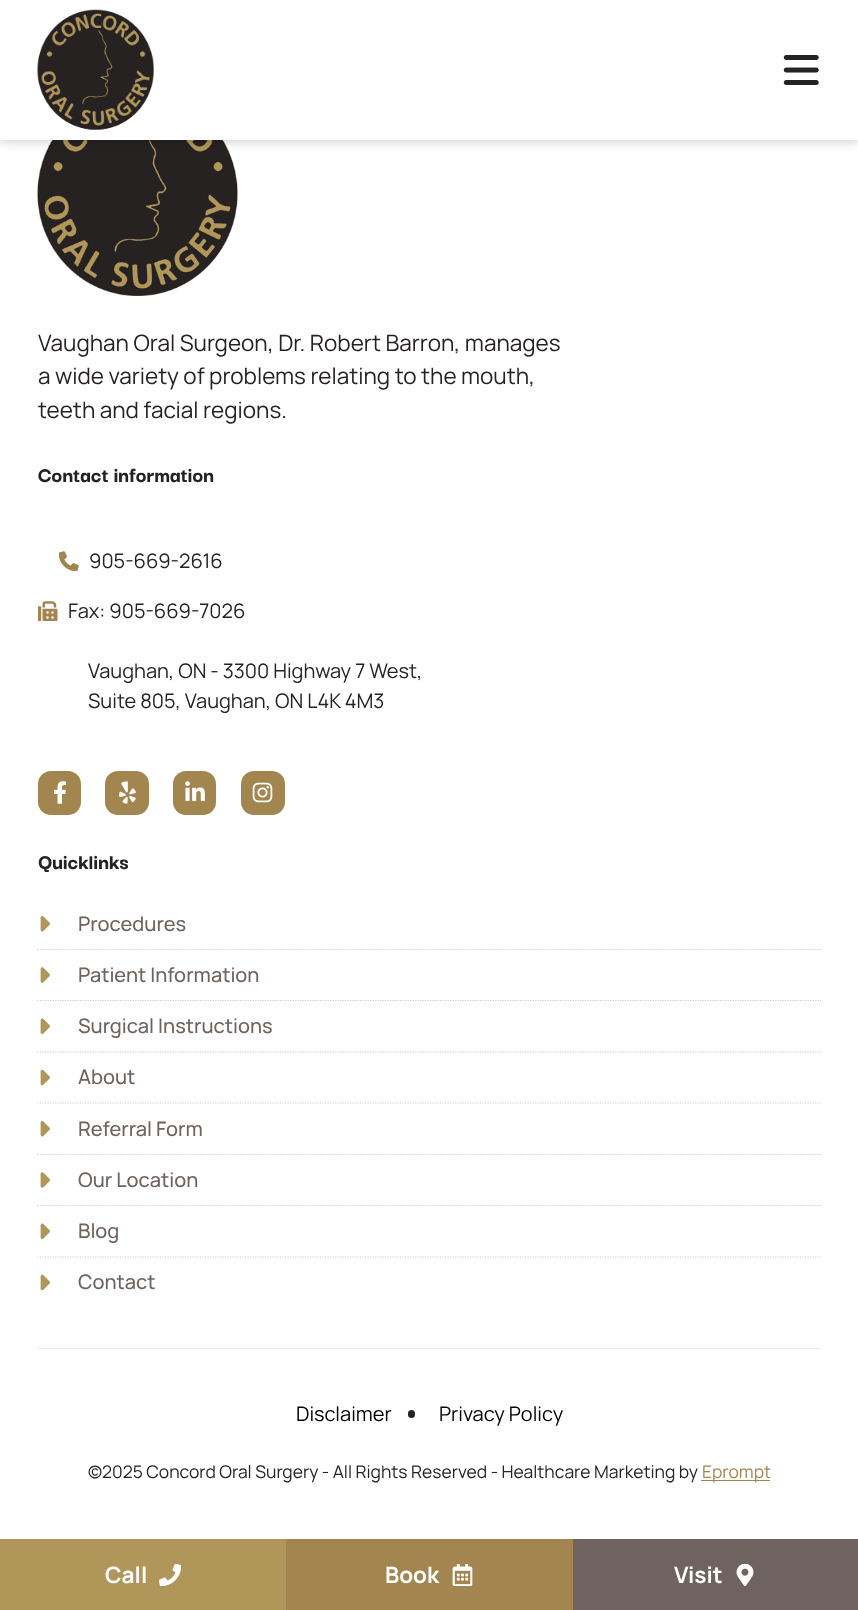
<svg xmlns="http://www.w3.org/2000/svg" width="858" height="1610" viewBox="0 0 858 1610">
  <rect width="100%" height="100%" fill="#fff"/>
  <image x="37" y="140" width="201" height="156" href="img/3.png"/>
  <path d="M0 0h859v140H0z" fill="#00000040" filter="blur(6px)"/>
  <path d="M0 0h858v140H0z" fill="#fff"/>
  <image x="37" y="9" width="117" height="121" href="img/1.png"/>
  <image x="783" y="55" width="36" height="30" href="img/2.png"/>
  <image x="59" y="551" width="20" height="20" href="img/4.png"/>
  <image x="38" y="601" width="20" height="20" href="img/5.png"/>
  <rect x="38" y="771" width="43" height="44" rx="13" fill="#a3864f"/>
  <image x="53" y="781" width="14" height="23" href="img/6.png"/>
  <rect x="105" y="771" width="44" height="44" rx="13" fill="#a3864f"/>
  <image x="119" y="781" width="17" height="23" href="img/7.png"/>
  <rect x="173" y="771" width="43" height="44" rx="13" fill="#a3864f"/>
  <image x="185" y="781" width="20" height="20" href="img/8.png"/>
  <rect x="241" y="771" width="44" height="44" rx="13" fill="#a3864f"/>
  <image x="252" y="782" width="21" height="21" href="img/9.png"/>
  <path d="M37.5 949.5H821" fill="none" stroke="#ccc" stroke-width="1.2" stroke-dasharray="1.25 1.25"/>
  <image x="40" y="916" width="10" height="16" href="img/10.png"/>
  <path d="M37.5 1000.5H821" fill="none" stroke="#ccc" stroke-width="1.2" stroke-dasharray="1.25 1.25"/>
  <image x="40" y="967" width="10" height="16" href="img/11.png"/>
  <path d="M37.5 1052H821" fill="none" stroke="#ccc" stroke-width="1.2" stroke-dasharray="1.25 1.25"/>
  <image x="40" y="1018" width="10" height="16" href="img/12.png"/>
  <path d="M37.5 1103H821" fill="none" stroke="#ccc" stroke-width="1.2" stroke-dasharray="1.25 1.25"/>
  <image x="40" y="1069" width="10" height="17" href="img/13.png"/>
  <path d="M37.5 1154.5H821" fill="none" stroke="#ccc" stroke-width="1.2" stroke-dasharray="1.25 1.25"/>
  <image x="40" y="1121" width="10" height="16" href="img/10.png"/>
  <path d="M37.5 1205.5H821" fill="none" stroke="#ccc" stroke-width="1.2" stroke-dasharray="1.25 1.25"/>
  <image x="40" y="1172" width="10" height="16" href="img/11.png"/>
  <path d="M37.5 1257H821" fill="none" stroke="#ccc" stroke-width="1.2" stroke-dasharray="1.25 1.25"/>
  <image x="40" y="1223" width="10" height="16" href="img/12.png"/>
  <image x="40" y="1274" width="10" height="17" href="img/13.png"/>
  <path d="M38 1348h783v1H38z" fill="#e9e9ef"/>
  <rect x="408" y="1410" width="7" height="8" rx="3.5" fill="#272222"/>
  <path d="M701 1480h69v1H701z" fill="#a3864f"/>
  <path d="M0 1539h286v71H0z" fill="#b1965a"/>
  <image x="159" y="1564" width="22" height="22" href="img/14.png"/>
  <path d="M286 1539h287v71H286z" fill="#a3864f"/>
  <image x="452" y="1564" width="21" height="22" href="img/15.png"/>
  <path d="M573 1539h285v71H573z" fill="#6f635f"/>
  <image x="736" y="1564" width="18" height="22" href="img/16.png"/>
  <g font-family="Manrope" font-size="22.5" fill="#272222">
    <text x="38" y="351">Vaughan Oral Surgeon, Dr. Robert Barron, manages</text>
    <text x="38" y="384">a wide variety of problems relating to the mouth,</text>
    <text x="38" y="418">teeth and facial regions.</text>
  </g>
  <text x="38" y="482" font-family="Darker Grotesque" font-size="22.5" font-weight="800" fill="#272222">Contact information</text>
  <g font-family="Manrope" font-size="20" fill="#272222">
    <text x="89" y="568">905-669-2616</text>
    <text x="68" y="618">Fax: 905-669-7026</text>
    <text x="88" y="678">Vaughan, ON - 3300 Highway 7 West,</text>
    <text x="88" y="708">Suite 805, Vaughan, ON L4K 4M3</text>
  </g>
  <text x="38" y="869" font-family="Darker Grotesque" font-size="22.5" font-weight="800" fill="#272222">Quicklinks</text>
  <g font-family="Manrope" font-size="20" font-weight="500" fill="#6f635f">
    <text x="78" y="931">Procedures</text>
    <text x="78" y="982">Patient Information</text>
    <text x="78" y="1033">Surgical Instructions</text>
    <text x="78" y="1084">About</text>
    <text x="78" y="1136">Referral Form</text>
    <text x="78" y="1187">Our Location</text>
    <text x="78" y="1238">Blog</text>
    <text x="78" y="1289">Contact</text>
  </g>
  <g font-family="Manrope" font-size="20" fill="#000">
    <text x="296" y="1421">Disclaimer</text>
    <text x="439" y="1421">Privacy Policy</text>
  </g>
  <text x="88" y="1478" font-family="Manrope" font-size="17.5" fill="#272222">©2025 Concord Oral Surgery - All Rights Reserved - Healthcare Marketing by</text>
  <text x="702" y="1478" font-family="Manrope" font-size="17.5" fill="#a3864f">Eprompt</text>
  <g font-family="Manrope" font-size="22.5" font-weight="bold" fill="#fff">
    <text x="105" y="1583">Call</text>
    <text x="385" y="1583">Book</text>
    <text x="674" y="1583">Visit</text>
  </g>
</svg>
